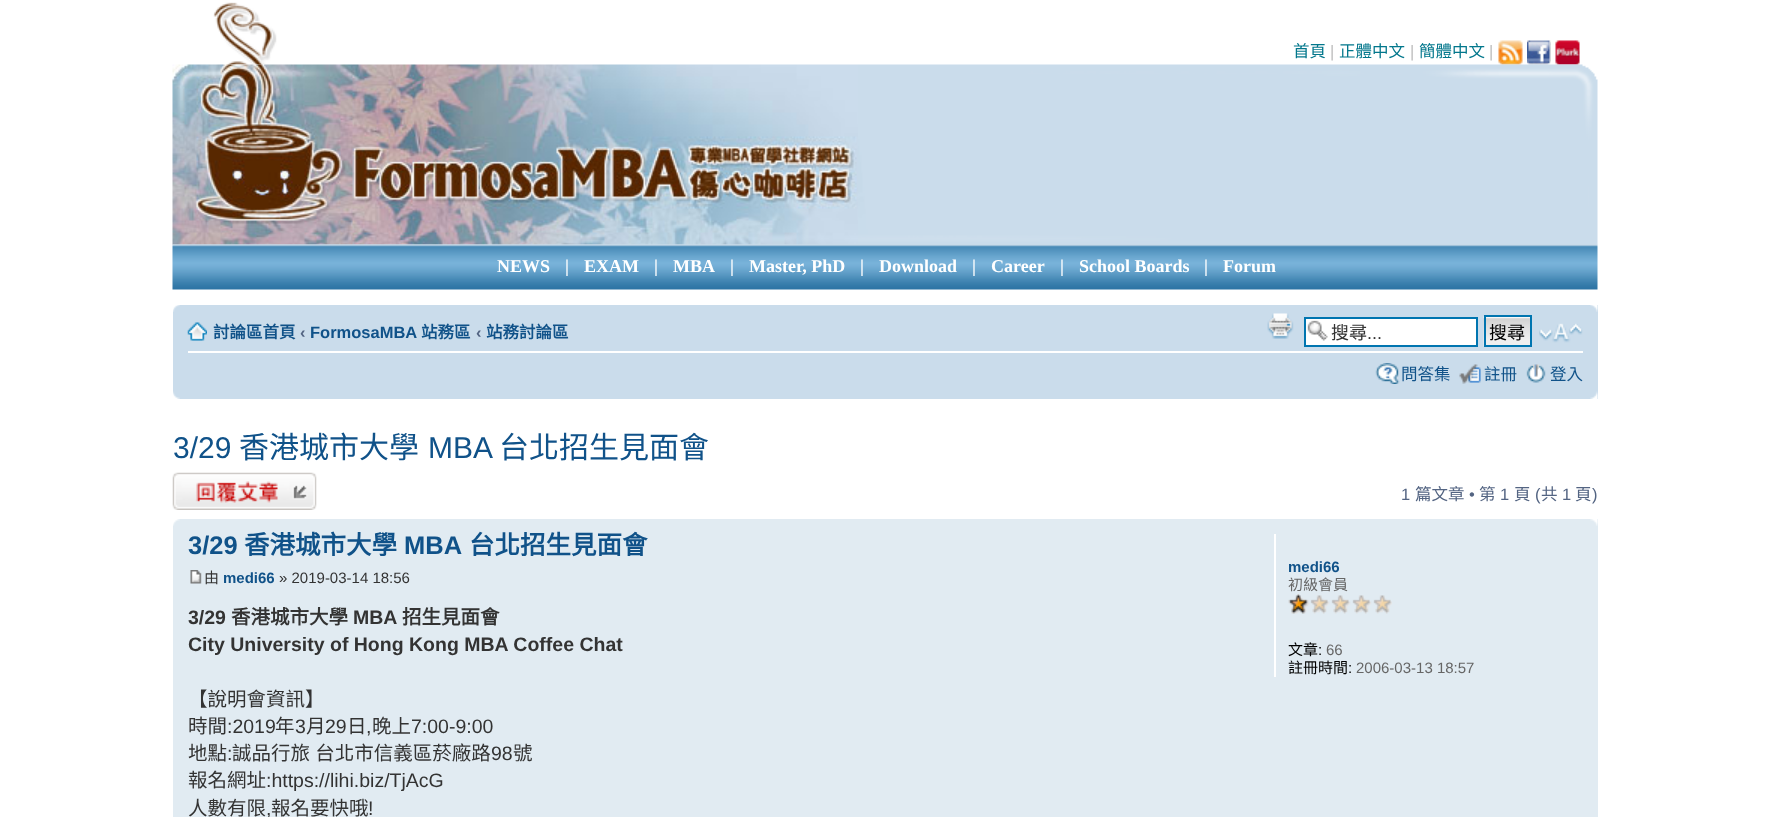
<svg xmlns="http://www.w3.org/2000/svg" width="1769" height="817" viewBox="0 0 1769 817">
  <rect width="100%" height="100%" fill="#fff"/>
  <image x="213" y="2" width="64" height="63" href="img/1.png"/>
  <image x="1498" y="40" width="25" height="25" href="img/2.png"/>
  <image x="1527" y="40" width="24" height="25" href="img/3.png"/>
  <image x="1555" y="40" width="25" height="25" href="img/4.png"/>
  <image x="172" y="64" width="686" height="181" href="img/5.png"/>
  <image x="858" y="64" width="740" height="181" href="img/6.png"/>
  <image x="172" y="244" width="1426" height="46" href="img/7.png"/>
  <path d="M173 305h1425v94H173z" fill="#cadceb"/>
  <image x="173" y="305" width="7" height="7" href="img/8.png"/>
  <image x="1590" y="305" width="8" height="7" href="img/9.png"/>
  <path d="M188 351h1395v2H188z" fill="#fff"/>
  <image x="187" y="322" width="20" height="19" href="img/10.png"/>
  <image x="1267" y="313" width="27" height="26" href="img/11.png"/>
  <path d="M1306 319h170v26H1306z" fill="#fff"/>
  <image x="1307" y="320" width="21" height="21" href="img/12.png"/>
  <path d="M1305 318h172v28H1305z" fill="none" stroke="#0075b0" stroke-width="2"/>
  <image x="1483" y="316" width="47" height="31" href="img/13.png"/>
  <path d="M1485 316h46v30H1485z" fill="none" stroke="#0075b0" stroke-width="2"/>
  <image x="1539" y="323" width="44" height="20" href="img/14.png"/>
  <image x="1375" y="363" width="25" height="21" href="img/15.png"/>
  <image x="1459" y="364" width="22" height="20" href="img/16.png"/>
  <image x="1526" y="364" width="20" height="19" href="img/17.png"/>
  <image x="173" y="391" width="7" height="8" href="img/18.png"/>
  <image x="1590" y="391" width="8" height="8" href="img/19.png"/>
  <image x="172" y="472" width="145" height="38" href="img/20.png"/>
  <path d="M173 519h1425v298H173z" fill="#e1ebf2"/>
  <image x="173" y="519" width="7" height="7" href="img/21.png"/>
  <image x="1590" y="519" width="8" height="7" href="img/22.png"/>
  <image x="190" y="570" width="12" height="14" href="img/23.png"/>
  <path d="M1274 534h2v143H1274z" fill="#fff"/>
  <image x="1288" y="594" width="104" height="20" href="img/24.png"/>
  <text x="1293" y="57" font-family="Noto Sans CJK TC" font-size="16.5" fill="#02778c">首頁</text>
  <text x="1330" y="57" font-family="Liberation Sans" font-size="16.5" fill="#bebebe">|</text>
  <text x="1339" y="57" font-family="Noto Sans CJK TC" font-size="16.5" fill="#02778c">正體中文</text>
  <text x="1410" y="57" font-family="Liberation Sans" font-size="16.5" fill="#bebebe">|</text>
  <text x="1419" y="57" font-family="Noto Sans CJK TC" font-size="16.5" fill="#02778c">簡體中文</text>
  <text x="1489" y="57" font-family="Liberation Sans" font-size="16.5" fill="#bebebe">|</text>
  <g font-family="Liberation Serif" font-size="18" font-weight="bold" fill="#fff">
    <text x="497" y="272">NEWS</text>
    <text x="565" y="272">|</text>
    <text x="584" y="272">EXAM</text>
    <text x="654" y="272">|</text>
    <text x="673" y="272">MBA</text>
    <text x="730" y="272">|</text>
    <text x="749" y="272">Master, PhD</text>
    <text x="860" y="272">|</text>
    <text x="879" y="272">Download</text>
    <text x="972" y="272">|</text>
    <text x="991" y="272">Career</text>
    <text x="1060" y="272">|</text>
    <text x="1079" y="272">School Boards</text>
    <text x="1204" y="272">|</text>
    <text x="1223" y="272">Forum</text>
  </g>
  <text x="213" y="338" font-family="Noto Sans CJK TC" font-size="16.5" font-weight="bold" fill="#105289">討論區首頁</text>
  <text x="300" y="338" font-family="Liberation Sans" font-size="16.5" font-weight="bold" fill="#536482">‹</text>
  <text x="310" y="338" font-family="Liberation Sans" font-size="16.5" font-weight="bold" fill="#105289">FormosaMBA</text>
  <text x="421" y="338" font-family="Noto Sans CJK TC" font-size="16.5" font-weight="bold" fill="#105289">站務區</text>
  <text x="476" y="338" font-family="Liberation Sans" font-size="16.5" font-weight="bold" fill="#536482">‹</text>
  <text x="486" y="338" font-family="Noto Sans CJK TC" font-size="16.5" font-weight="bold" fill="#105289">站務討論區</text>
  <text x="1331" y="339" font-family="Noto Sans CJK TC" font-size="18" fill="#333">搜尋</text>
  <text x="1367" y="339" font-family="Liberation Sans" font-size="18" fill="#333">...</text>
  <text x="1489" y="339" font-family="Noto Sans CJK TC" font-size="18" fill="#000">搜尋</text>
  <g font-family="Noto Sans CJK TC" font-size="16.5" fill="#105289">
    <text x="1401" y="380">問答集</text>
    <text x="1484" y="380">註冊</text>
    <text x="1550" y="380">登入</text>
  </g>
  <text x="173" y="458" font-family="Liberation Sans" font-size="30" fill="#105289">3/29</text>
  <text x="239" y="458" font-family="Noto Sans CJK TC" font-size="30" fill="#105289">香港城市大學</text>
  <text x="428" y="458" font-family="Liberation Sans" font-size="30" fill="#105289">MBA</text>
  <text x="499" y="458" font-family="Noto Sans CJK TC" font-size="30" fill="#105289">台北招生見面會</text>
  <text x="1401" y="500" font-family="Liberation Sans" font-size="16.5" fill="#536482">1</text>
  <text x="1415" y="500" font-family="Noto Sans CJK TC" font-size="16.5" fill="#536482">篇文章</text>
  <text x="1469" y="500" font-family="Liberation Sans" font-size="16.5" fill="#536482">•</text>
  <text x="1479" y="500" font-family="Noto Sans CJK TC" font-size="16.5" fill="#536482">第</text>
  <text x="1500" y="500" font-family="Liberation Sans" font-size="16.5" fill="#536482">1</text>
  <text x="1514" y="500" font-family="Noto Sans CJK TC" font-size="16.5" fill="#536482">頁</text>
  <text x="1535" y="500" font-family="Liberation Sans" font-size="16.5" fill="#536482">(</text>
  <text x="1541" y="500" font-family="Noto Sans CJK TC" font-size="16.5" fill="#536482">共</text>
  <text x="1562" y="500" font-family="Liberation Sans" font-size="16.5" fill="#536482">1</text>
  <text x="1575" y="500" font-family="Noto Sans CJK TC" font-size="16.5" fill="#536482">頁</text>
  <text x="1592" y="500" font-family="Liberation Sans" font-size="16.5" fill="#536482">)</text>
  <text x="188" y="554" font-family="Liberation Sans" font-size="25.5" font-weight="bold" fill="#105289">3/29</text>
  <text x="244" y="554" font-family="Noto Sans CJK TC" font-size="25.5" font-weight="bold" fill="#105289">香港城市大學</text>
  <text x="404" y="554" font-family="Liberation Sans" font-size="25.5" font-weight="bold" fill="#105289">MBA</text>
  <text x="469" y="554" font-family="Noto Sans CJK TC" font-size="25.5" font-weight="bold" fill="#105289">台北招生見面會</text>
  <text x="204" y="583" font-family="Noto Sans CJK TC" font-size="15" fill="#333">由</text>
  <text x="223" y="583" font-family="Liberation Sans" font-size="15" font-weight="bold" fill="#105289">medi66</text>
  <text x="279" y="583" font-family="Liberation Sans" font-size="15" fill="#333">» 2019-03-14 18:56</text>
  <text x="188" y="624" font-family="Liberation Sans" font-size="19.5" font-weight="bold" fill="#333">3/29</text>
  <text x="231" y="624" font-family="Noto Sans CJK TC" font-size="19.5" font-weight="bold" fill="#333">香港城市大學</text>
  <text x="353" y="624" font-family="Liberation Sans" font-size="19.5" font-weight="bold" fill="#333">MBA</text>
  <text x="402" y="624" font-family="Noto Sans CJK TC" font-size="19.5" font-weight="bold" fill="#333">招生見面會</text>
  <text x="188" y="651" font-family="Liberation Sans" font-size="19.5" font-weight="bold" fill="#333">City University of Hong Kong MBA Coffee Chat</text>
  <g font-family="Noto Sans CJK TC" font-size="19.5" fill="#333">
    <text x="188" y="706">【說明會資訊】</text>
    <text x="188" y="733">時間</text>
  </g>
  <text x="227" y="733" font-family="Liberation Sans" font-size="19.5" fill="#333">:2019</text>
  <text x="275" y="733" font-family="Noto Sans CJK TC" font-size="19.5" fill="#333">年</text>
  <text x="295" y="733" font-family="Liberation Sans" font-size="19.5" fill="#333">3</text>
  <text x="306" y="733" font-family="Noto Sans CJK TC" font-size="19.5" fill="#333">月</text>
  <text x="325" y="733" font-family="Liberation Sans" font-size="19.5" fill="#333">29</text>
  <text x="347" y="733" font-family="Noto Sans CJK TC" font-size="19.5" fill="#333">日</text>
  <text x="366" y="733" font-family="Liberation Sans" font-size="19.5" fill="#333">,</text>
  <text x="372" y="733" font-family="Noto Sans CJK TC" font-size="19.5" fill="#333">晚上</text>
  <text x="411" y="733" font-family="Liberation Sans" font-size="19.5" fill="#333">7:00-9:00</text>
  <text x="188" y="760" font-family="Noto Sans CJK TC" font-size="19.5" fill="#333">地點</text>
  <text x="227" y="760" font-family="Liberation Sans" font-size="19.5" fill="#333">:</text>
  <text x="232" y="760" word-spacing="1" font-family="Noto Sans CJK TC" font-size="19.5" fill="#333">誠品行旅 台北市信義區菸廠路</text>
  <text x="491" y="760" font-family="Liberation Sans" font-size="19.5" fill="#333">98</text>
  <g font-family="Noto Sans CJK TC" font-size="19.5" fill="#333">
    <text x="513" y="760">號</text>
    <text x="188" y="787">報名網址</text>
  </g>
  <text x="266" y="787" font-family="Liberation Sans" font-size="19.5" fill="#333">:https://lihi.biz/TjAcG</text>
  <text x="188" y="815" font-family="Noto Sans CJK TC" font-size="19.5" fill="#333">人數有限</text>
  <text x="266" y="815" font-family="Liberation Sans" font-size="19.5" fill="#333">,</text>
  <text x="271" y="815" font-family="Noto Sans CJK TC" font-size="19.5" fill="#333">報名要快哦</text>
  <text x="368" y="815" font-family="Liberation Sans" font-size="19.5" fill="#333">!</text>
  <text x="1288" y="572" font-family="Liberation Sans" font-size="15" font-weight="bold" fill="#105289">medi66</text>
  <text x="1288" y="590" font-family="Noto Sans CJK TC" font-size="15" fill="#666">初級會員</text>
  <text x="1288" y="655" font-family="Noto Sans CJK TC" font-size="15" fill="#000">文章</text>
  <text x="1318" y="655" font-family="Liberation Sans" font-size="15" fill="#000">:</text>
  <text x="1326" y="655" font-family="Liberation Sans" font-size="15" fill="#666">66</text>
  <text x="1288" y="673" font-family="Noto Sans CJK TC" font-size="15" fill="#000">註冊時間</text>
  <text x="1348" y="673" font-family="Liberation Sans" font-size="15" fill="#000">:</text>
  <text x="1356" y="673" font-family="Liberation Sans" font-size="15" fill="#666">2006-03-13 18:57</text>
</svg>
